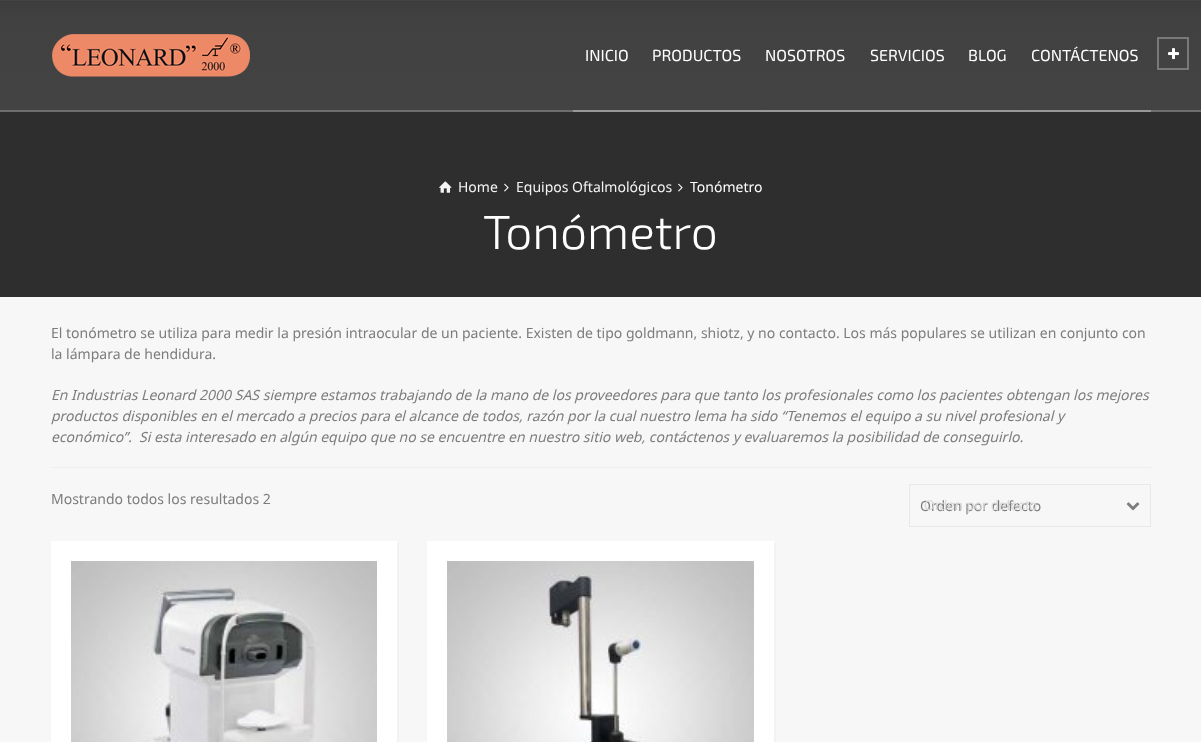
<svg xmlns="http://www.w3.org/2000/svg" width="1201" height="742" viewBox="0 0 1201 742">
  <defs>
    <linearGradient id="g1" gradientUnits="userSpaceOnUse" x1="601" y1="0" x2="601" y2="110"><stop offset="0.01" stop-color="#434343"/><stop offset="0.01" stop-color="#3c3c3c"/><stop offset="0.14" stop-color="#414141"/><stop offset="1" stop-color="#434343"/></linearGradient>
  </defs>
  <rect width="100%" height="100%" fill="#2e2e2e"/>
  <path d="M0 0h1201v110H0z" fill="url(#g1)"/>
  <image x="52" y="34" width="198" height="43" href="img/1.png"/>
  <path d="M0 110h1201v2H0z" fill="#6d6d6d"/>
  <path d="M573 110h578v2H573z" fill="#999"/>
  <path d="M1158 38h30v31H1158z" fill="none" stroke="#797979" stroke-width="2"/>
  <image x="1168" y="48" width="11" height="12" href="img/2.png"/>
  <image x="439" y="181" width="13" height="12" href="img/3.png"/>
  <image x="504" y="183" width="5" height="9" href="img/4.png"/>
  <image x="678" y="183" width="5" height="9" href="img/4.png"/>
  <path d="M0 297h1201v445H0z" fill="#f7f7f7"/>
  <path d="M51 467h1100v1H51z" fill="#eee"/>
  <path d="M909.5 484.5h241v42H909.5z" fill="none" stroke="#e8e8e8"/>
  <image x="1126" y="502" width="14" height="9" href="img/5.png"/>
  <path d="M53 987V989H399V543H397V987Z" fill="#f2f2f2"/>
  <path d="M51 541h346v201H51z" fill="#fff"/>
  <image x="71" y="561" width="306" height="181" href="img/6.png"/>
  <path d="M429 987V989H776V543H774V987Z" fill="#f2f2f2"/>
  <path d="M427 541h347v201H427z" fill="#fff"/>
  <image x="447" y="561" width="307" height="181" href="img/7.png"/>
  <g font-family="'Exo 2'" font-size="16" fill="#fff">
    <text x="585" y="61">INICIO</text>
    <text x="652" y="61">PRODUCTOS</text>
    <text x="765" y="61">NOSOTROS</text>
    <text x="870" y="61">SERVICIOS</text>
    <text x="968" y="61">BLOG</text>
    <text x="1031" y="61">CONTÁCTENOS</text>
  </g>
  <g font-family="Noto Sans" font-size="14" fill="#f4f4f4">
    <text x="458" y="192">Home</text>
    <text x="516" y="192">Equipos Oftalmológicos</text>
  </g>
  <text x="690" y="192" font-family="Noto Sans" font-size="14" fill="#fff">Tonómetro</text>
  <text x="483" y="249" font-family="'Exo 2'" font-size="48" font-weight="300" fill="#fff">Tonómetro</text>
  <g font-family="Noto Sans" font-size="14" fill="#7c7c7c">
    <text x="51" y="338">El tonómetro se utiliza para medir la presión intraocular de un paciente. Existen de tipo goldmann, shiotz, y no contacto. Los más populares se utilizan en conjunto con</text>
    <text x="51" y="359">la lámpara de hendidura.</text>
  </g>
  <g font-family="Noto Sans" font-size="14" font-style="italic" fill="#7c7c7c">
    <text x="51" y="400">En Industrias Leonard 2000 SAS siempre estamos trabajando de la mano de los proveedores para que tanto los profesionales como los pacientes obtengan los mejores</text>
    <text x="51" y="421">productos disponibles en el mercado a precios para el alcance de todos, razón por la cual nuestro lema ha sido “Tenemos el equipo a su nivel profesional y</text>
    <text x="51" y="442" xml:space="preserve">económico”.  Si esta interesado en algún equipo que no se encuentre en nuestro sitio web, contáctenos y evaluaremos la posibilidad de conseguirlo.</text>
  </g>
  <g font-family="Noto Sans" font-size="14" fill="#7c7c7c">
    <text x="51" y="504">Mostrando todos los resultados 2</text>
    <text x="920" y="511">Orden por defecto</text>
  </g>
  <text x="924" y="510" font-family="Liberation Sans" font-size="14" fill="#d8d8d8">Orden por defecto</text>
</svg>
